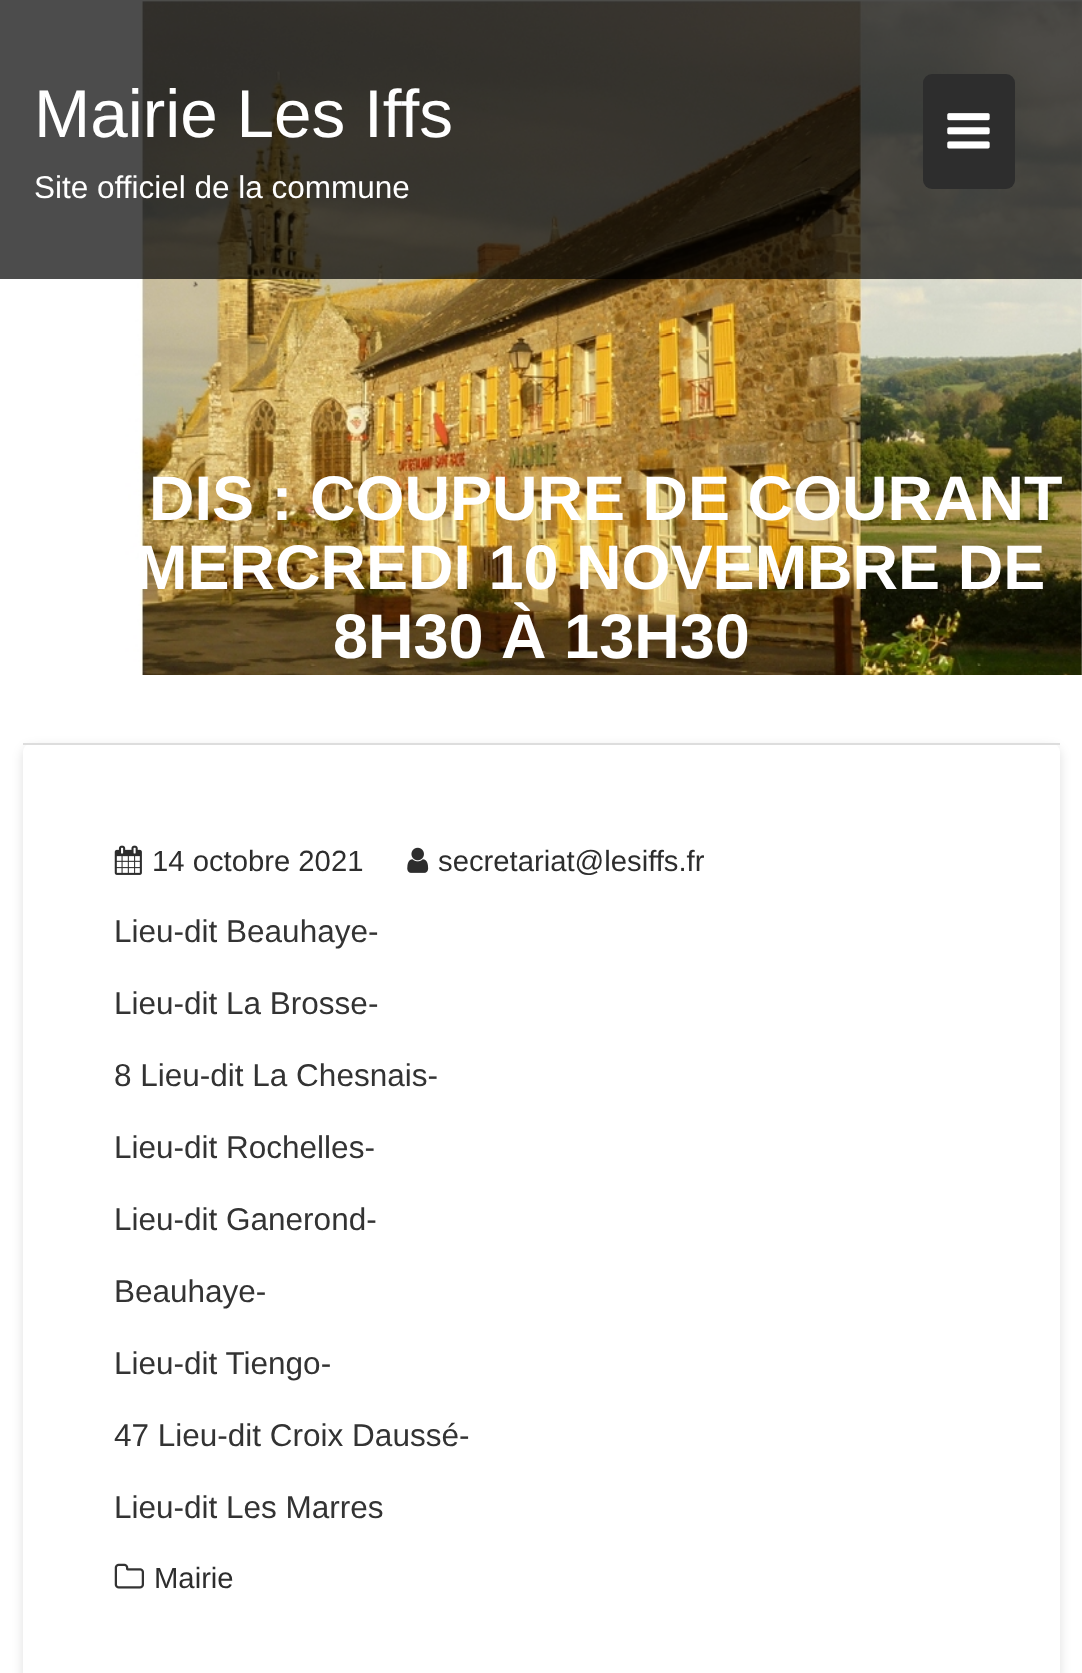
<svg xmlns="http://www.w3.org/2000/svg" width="1082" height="1673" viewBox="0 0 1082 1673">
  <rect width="100%" height="100%" fill="#fff"/>
  <image x="0" y="0" width="1082" height="675" href="img/2.png"/>
  <path d="M0 0h1082v279H0z" fill="#000000b3"/>
  <rect x="923" y="74" width="92" height="115" rx="9" fill="#2d2d2d"/>
  <image x="947" y="113" width="43" height="36" href="img/1.png"/>
  <rect x="23" y="747" width="1037" height="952" rx="9" fill="#00000021" filter="blur(5.5px)"/>
  <rect x="23" y="743" width="1037" height="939" rx="9" fill="#fff"/>
  <path d="M23 743h1037v2H23z" fill="#ddd"/>
  <image x="114" y="845" width="28" height="30" href="img/3.png"/>
  <image x="407" y="847" width="22" height="26" href="img/4.png"/>
  <image x="114" y="1563" width="30" height="26" href="img/5.png"/>
  <text x="34" y="137" font-family="Liberation Sans" font-size="67.5" fill="#fff">Mairie Les Iffs</text>
  <text x="34" y="198" font-family="Liberation Sans" font-size="31.5" fill="#fff">Site officiel de la commune</text>
  <g font-family="Liberation Sans" font-size="63" font-weight="bold" fill="#fff">
    <text x="149" y="520">DIS : COUPURE DE COURANT</text>
    <text x="135" y="589">MERCREDI 10 NOVEMBRE DE</text>
    <text x="333" y="658">8H30 À 13H30</text>
  </g>
  <g font-family="Liberation Sans" font-size="29.25" fill="#2d2d2d">
    <text x="152" y="871">14 octobre 2021</text>
    <text x="438" y="871">secretariat@lesiffs.fr</text>
  </g>
  <g font-family="Liberation Sans" font-size="31.5" fill="#333">
    <text x="114" y="942">Lieu-dit Beauhaye-</text>
    <text x="114" y="1014">Lieu-dit La Brosse-</text>
    <text x="114" y="1086">8 Lieu-dit La Chesnais-</text>
    <text x="114" y="1158">Lieu-dit Rochelles-</text>
    <text x="114" y="1230">Lieu-dit Ganerond-</text>
    <text x="114" y="1302">Beauhaye-</text>
    <text x="114" y="1374">Lieu-dit Tiengo-</text>
    <text x="114" y="1446">47 Lieu-dit Croix Daussé-</text>
    <text x="114" y="1518">Lieu-dit Les Marres</text>
  </g>
  <text x="154" y="1588" font-family="Liberation Sans" font-size="29.25" fill="#2d2d2d">Mairie</text>
</svg>
